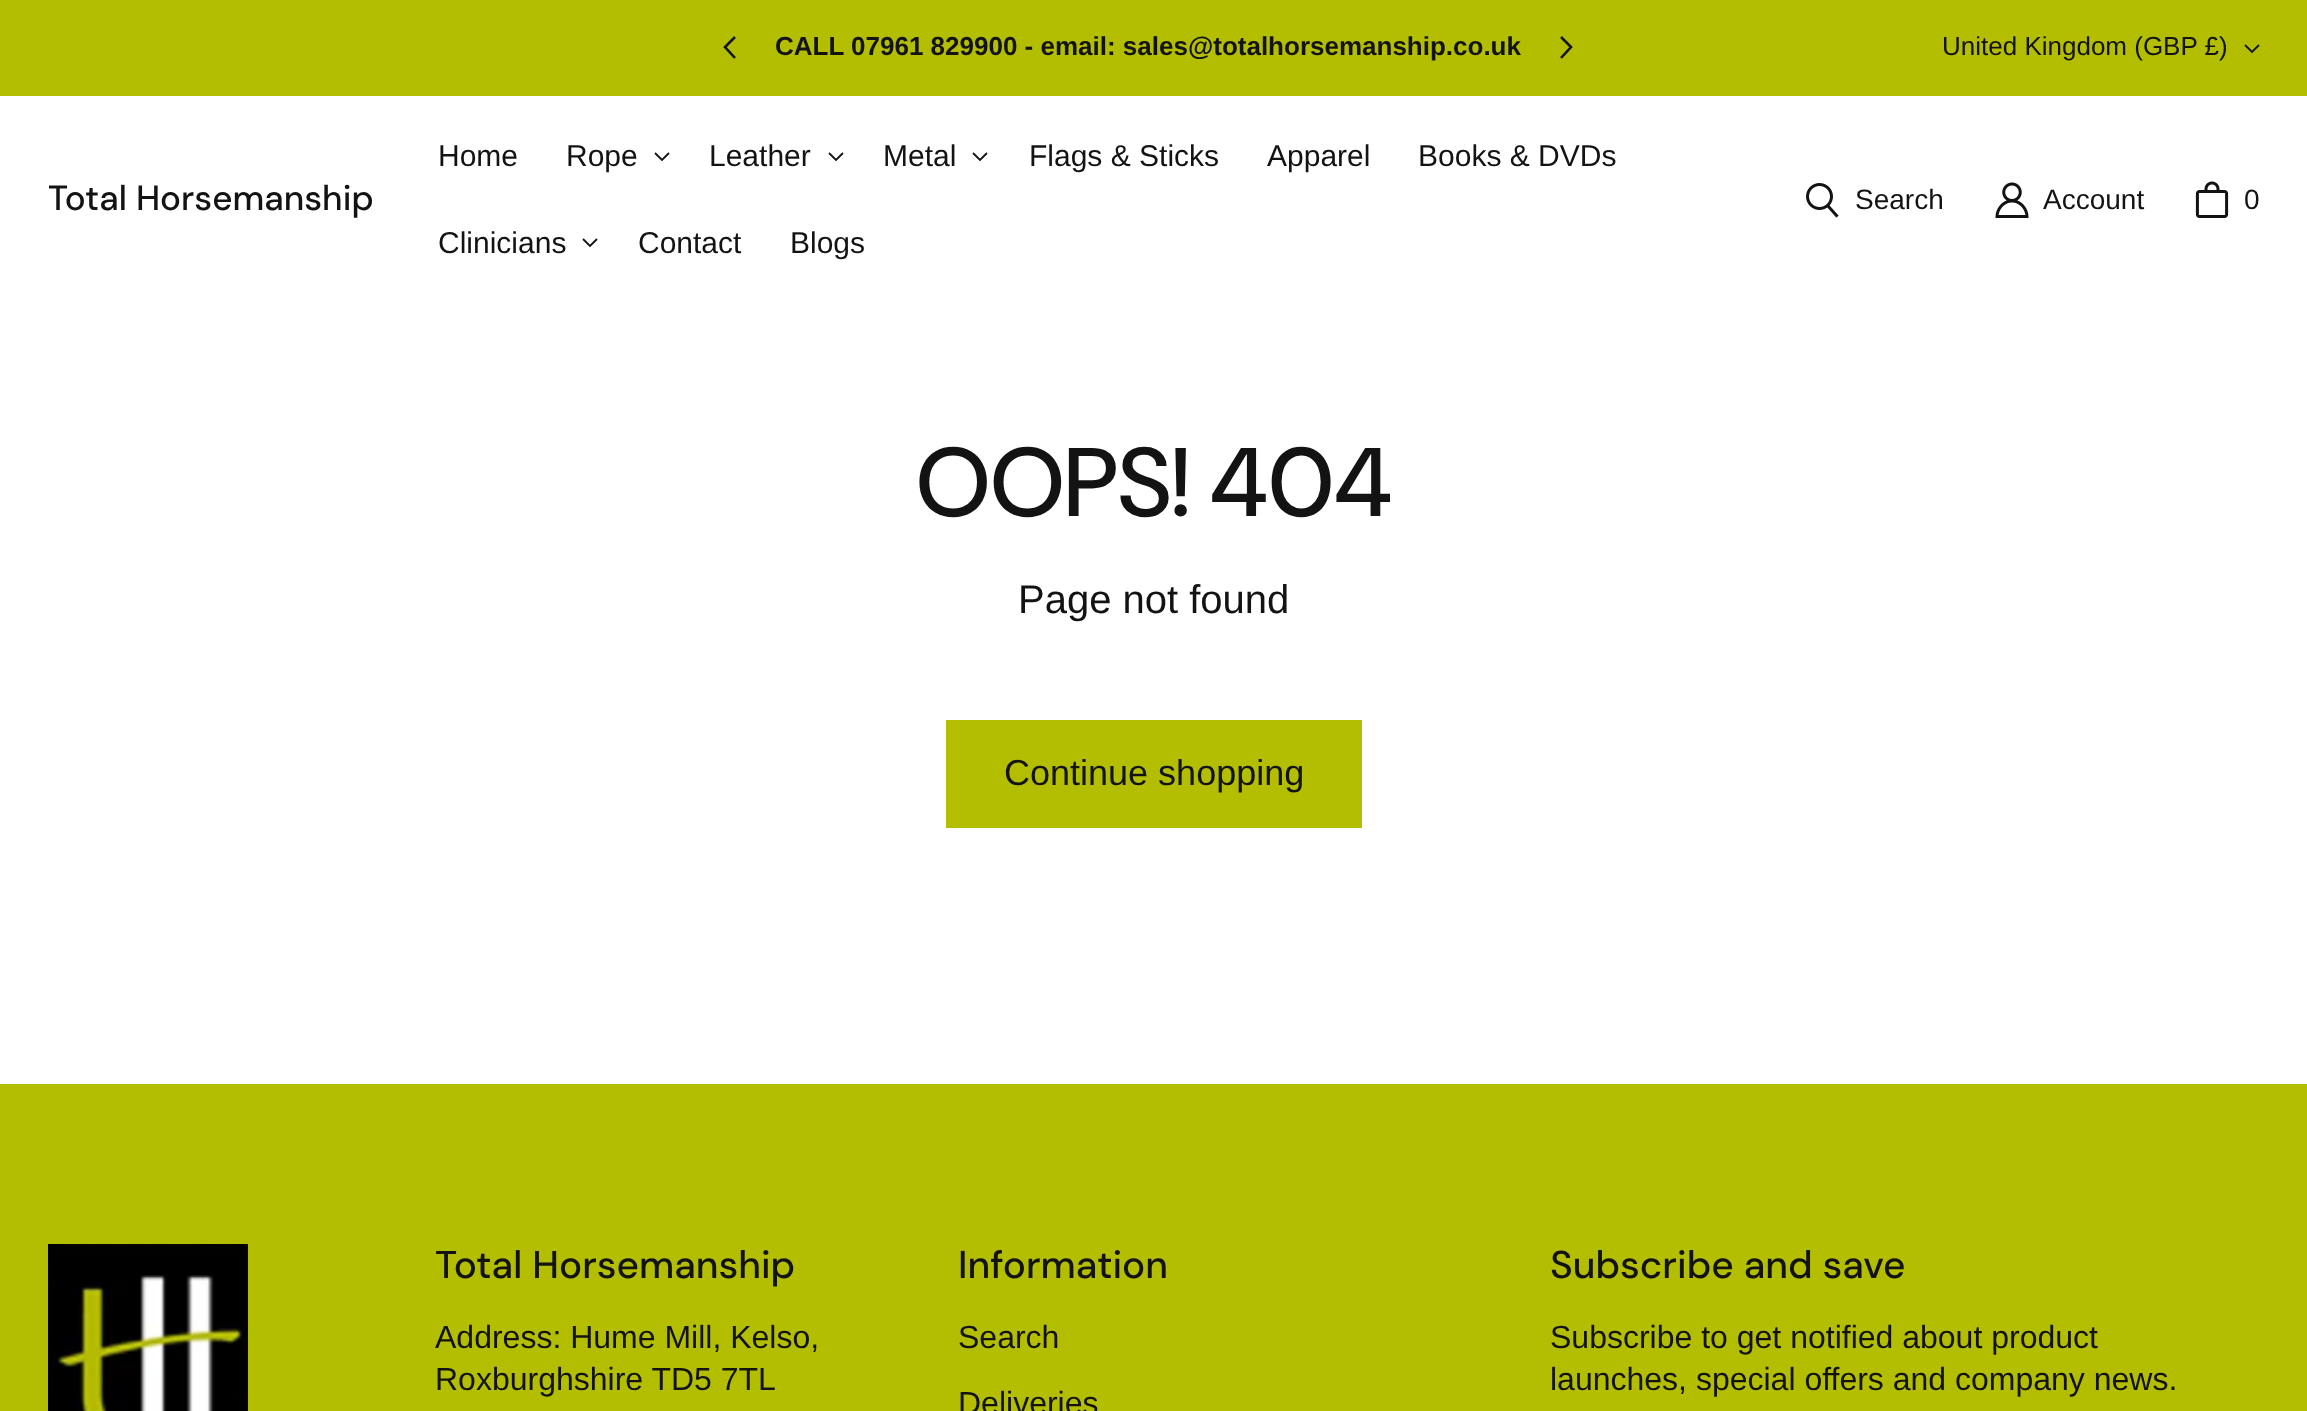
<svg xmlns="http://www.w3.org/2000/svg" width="2307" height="1411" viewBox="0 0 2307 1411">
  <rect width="100%" height="100%" fill="#fff"/>
  <path d="M0 0h2307v96H0z" fill="#b4be00"/>
  <path d="M735 37L725 47L735 58" fill="none" stroke="#131313" stroke-width="2.6"/>
  <path d="M1561 58L1571 47L1561 37" fill="none" stroke="#131313" stroke-width="2.6"/>
  <path d="M2245 45L2252 52L2259 45" fill="none" stroke="#131313" stroke-width="1.8"/>
  <path d="M655 153L662 160L669 153" fill="none" stroke="#131313" stroke-width="1.8"/>
  <path d="M829 153L836 160L843 153" fill="none" stroke="#131313" stroke-width="1.8"/>
  <path d="M973 153L980 160L987 153" fill="none" stroke="#131313" stroke-width="1.8"/>
  <path d="M583 239L590 246L597 239" fill="none" stroke="#131313" stroke-width="1.8"/>
  <image x="1806" y="183" width="33" height="35" href="img/1.png"/>
  <image x="1995" y="182" width="34" height="36" href="img/2.png"/>
  <image x="2195" y="181" width="34" height="37" href="img/3.png"/>
  <path d="M946 720h416v108H946z" fill="#b4be00"/>
  <path d="M0 1084h2307v327H0z" fill="#b4be00"/>
  <image x="48" y="1244" width="200" height="167" href="img/4.png"/>
  <text x="775" y="55" font-family="Liberation Sans" font-size="26" font-weight="bold" fill="#131313">CALL 07961 829900 - email: sales@totalhorsemanship.co.uk</text>
  <text x="1942" y="55" font-family="Liberation Sans" font-size="26" fill="#131313">United Kingdom (GBP £)</text>
  <text x="48" y="210" font-family="'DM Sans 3'" font-size="35" font-weight="500" fill="#131313">Total Horsemanship</text>
  <g font-family="Liberation Sans" font-size="30" fill="#131313">
    <text x="438" y="166">Home</text>
    <text x="566" y="166">Rope</text>
    <text x="709" y="166">Leather</text>
    <text x="883" y="166">Metal</text>
    <text x="1029" y="166">Flags &amp; Sticks</text>
    <text x="1267" y="166">Apparel</text>
    <text x="1418" y="166">Books &amp; DVDs</text>
    <text x="438" y="253">Clinicians</text>
    <text x="638" y="253">Contact</text>
    <text x="790" y="253">Blogs</text>
  </g>
  <g font-family="Liberation Sans" font-size="28" fill="#131313">
    <text x="1855" y="209">Search</text>
    <text x="2043" y="209">Account</text>
    <text x="2244" y="209">0</text>
  </g>
  <text x="916" y="516" font-family="DM Sans" font-size="97.25" font-weight="500" fill="#131313">OOPS! 404</text>
  <text x="1018" y="613" font-family="Liberation Sans" font-size="40" fill="#131313">Page not found</text>
  <text x="1004" y="785" font-family="Liberation Sans" font-size="36" fill="#131313">Continue shopping</text>
  <text x="435" y="1278" font-family="'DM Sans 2'" font-size="38.75" font-weight="500" fill="#131313">Total Horsemanship</text>
  <g font-family="Liberation Sans" font-size="32" fill="#131313">
    <text x="435" y="1348">Address: Hume Mill, Kelso,</text>
    <text x="435" y="1390">Roxburghshire TD5 7TL</text>
  </g>
  <text x="958" y="1278" font-family="'DM Sans 2'" font-size="38.75" font-weight="500" fill="#131313">Information</text>
  <g font-family="Liberation Sans" font-size="32" fill="#131313">
    <text x="958" y="1348">Search</text>
    <text x="958" y="1414">Deliveries</text>
  </g>
  <text x="1550" y="1278" font-family="'DM Sans 2'" font-size="38.75" font-weight="500" fill="#131313">Subscribe and save</text>
  <g font-family="Liberation Sans" font-size="32" fill="#131313">
    <text x="1550" y="1348">Subscribe to get notified about product</text>
    <text x="1550" y="1390">launches, special offers and company news.</text>
  </g>
</svg>
